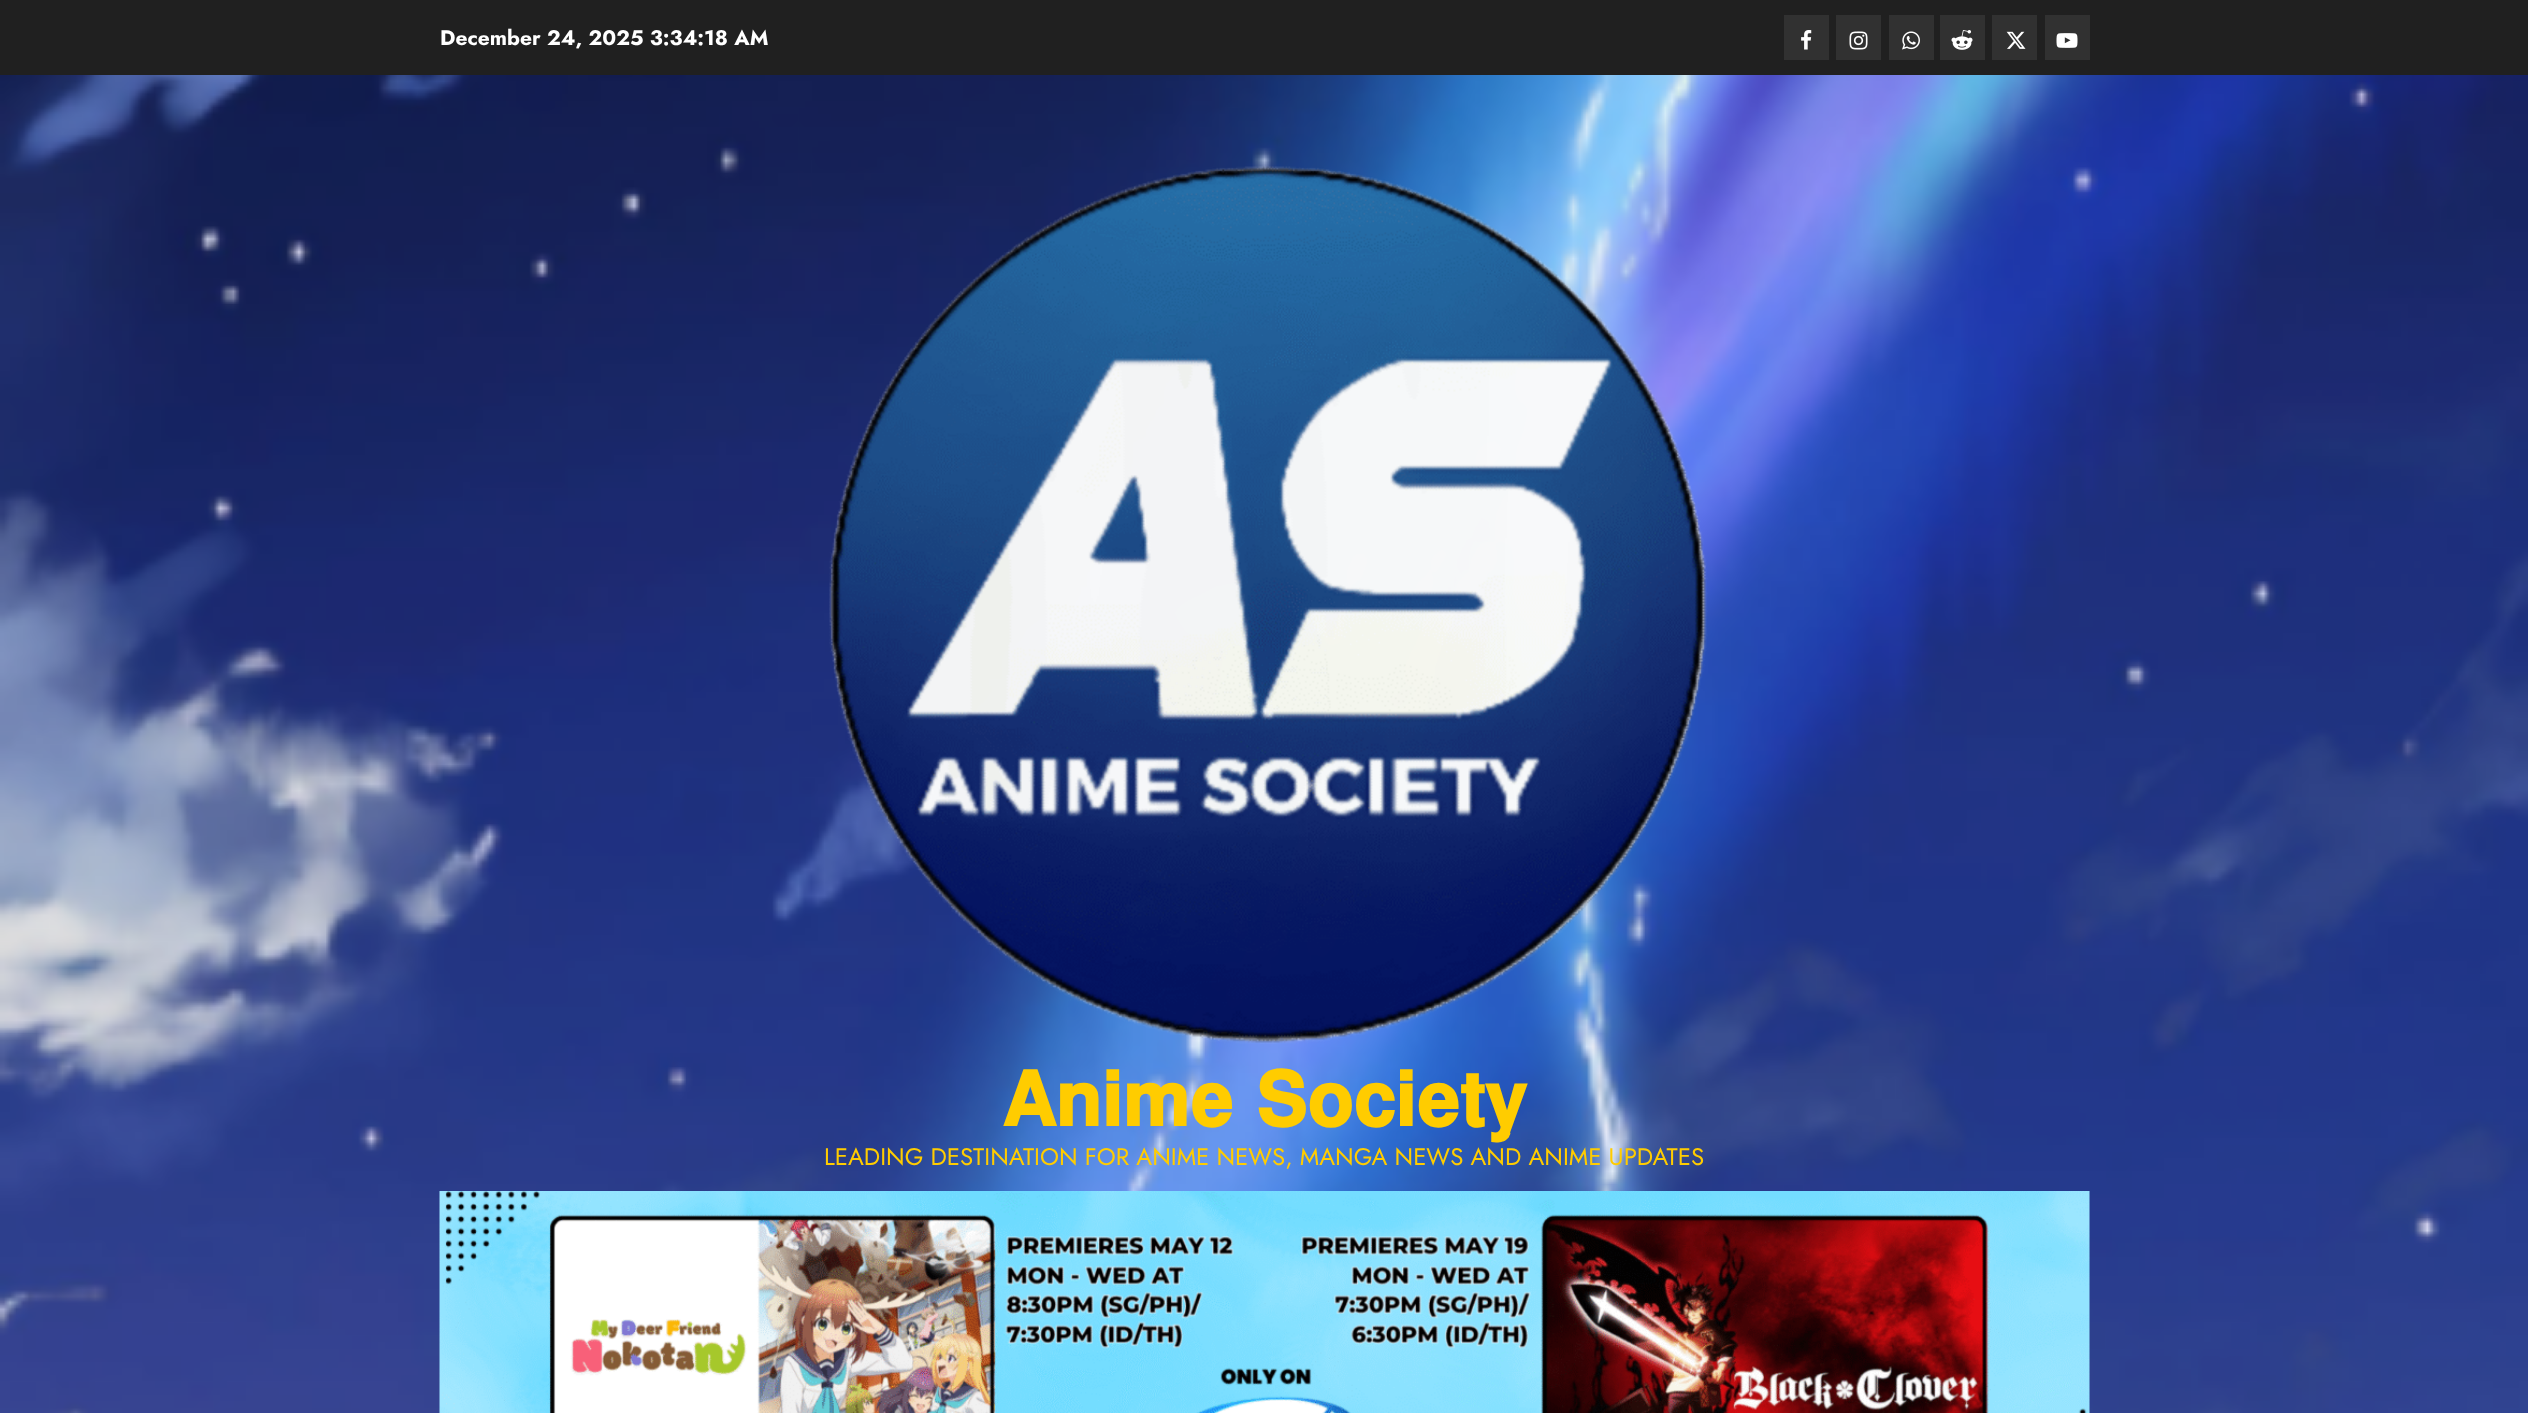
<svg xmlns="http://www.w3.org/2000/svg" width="2528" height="1413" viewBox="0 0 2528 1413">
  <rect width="100%" height="100%" fill="#202020"/>
  <path d="M1784 15h45v45H1784z" fill="#313131"/>
  <image x="1801" y="30" width="11" height="20" href="img/1.png"/>
  <path d="M1836 15h45v45H1836z" fill="#313131"/>
  <image x="1849" y="31" width="19" height="19" href="img/2.png"/>
  <path d="M1889 15h45v45H1889z" fill="#313131"/>
  <image x="1902" y="31" width="18" height="19" href="img/3.png"/>
  <path d="M1940 15h45v45H1940z" fill="#313131"/>
  <image x="1951" y="30" width="22" height="20" href="img/4.png"/>
  <path d="M1992 15h45v45H1992z" fill="#313131"/>
  <image x="2006" y="31" width="20" height="18" href="img/5.png"/>
  <path d="M2045 15h45v45H2045z" fill="#313131"/>
  <image x="2056" y="33" width="22" height="15" href="img/6.png"/>
  <image x="0" y="75" width="2528" height="1338" href="img/7.png"/>
  <image x="829" y="166" width="879" height="878" href="img/8.png"/>
  <image x="439" y="1191" width="1651" height="222" href="img/9.png"/>
  <text x="440" y="45" font-family="Jost" font-size="21" font-weight="bold" fill="#fff">December 24, 2025 3:34:18 AM</text>
  <text x="1003" y="1126" word-spacing="4" font-family="FreeSans" font-size="75" font-weight="bold" fill="#fc0">𝐀𝐧𝐢𝐦𝐞 𝐒𝐨𝐜𝐢𝐞𝐭𝐲</text>
  <text x="824" y="1165" font-family="Jost" font-size="24" fill="#fc0">LEADING DESTINATION FOR ANIME NEWS, MANGA NEWS AND ANIME UPDATES</text>
</svg>
